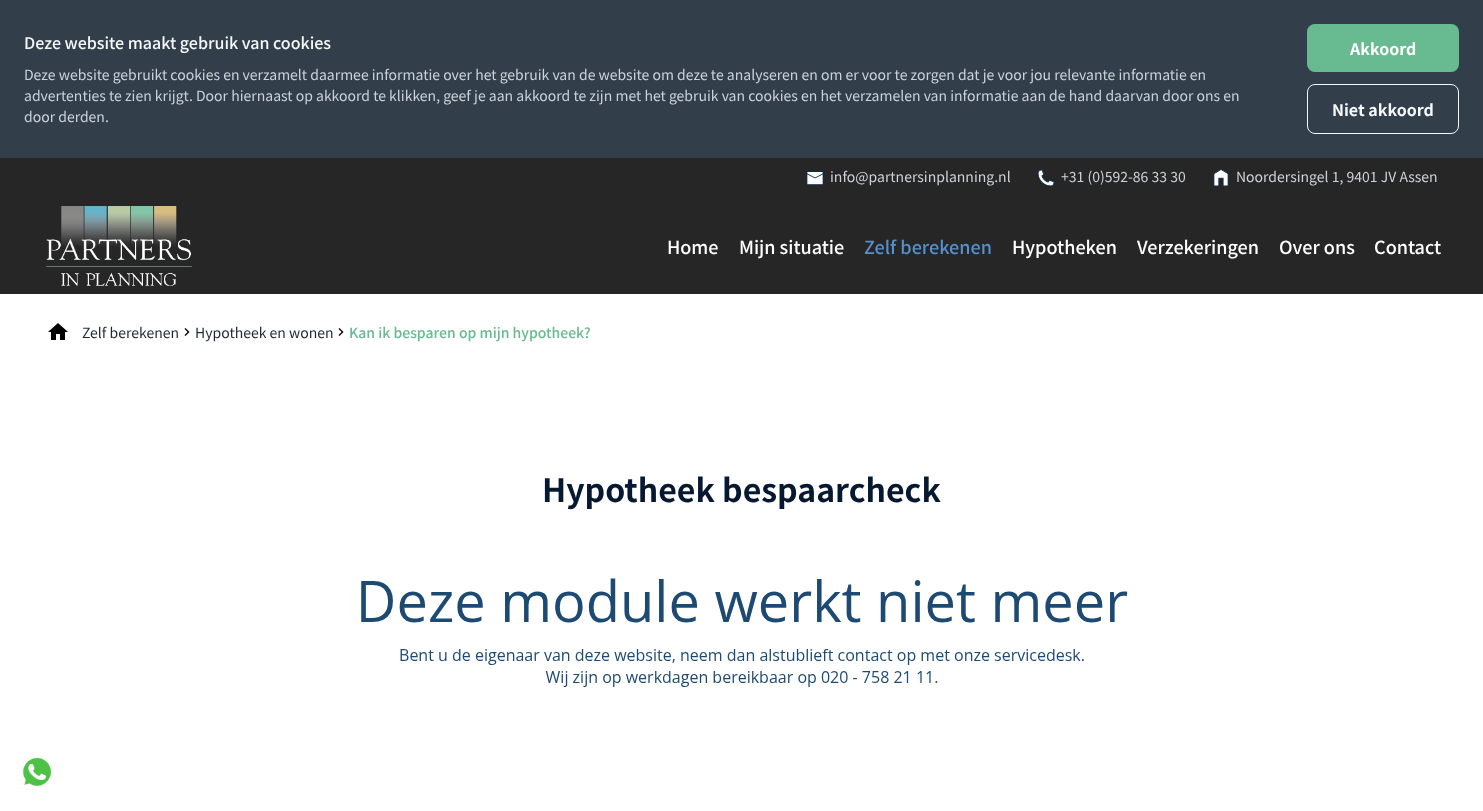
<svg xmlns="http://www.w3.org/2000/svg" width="1483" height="811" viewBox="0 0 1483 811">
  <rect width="100%" height="100%" fill="#fff"/>
  <path d="M0 0h1483v158H0z" fill="#323f4b"/>
  <rect x="1307" y="24" width="152" height="48" rx="8" fill="#68ba90"/>
  <rect x="1307.5" y="84.5" width="151" height="49" rx="7.5" fill="none" stroke="#f5f7fa"/>
  <path d="M0 158h1483v136H0z" fill="#262626"/>
  <image x="806" y="171" width="18" height="14" href="img/1.png"/>
  <image x="1037" y="169" width="18" height="18" href="img/2.png"/>
  <image x="1213" y="169" width="16" height="18" href="img/3.png"/>
  <image x="46" y="206" width="146" height="80" href="img/4.png"/>
  <image x="48" y="323" width="20" height="17" href="img/5.png"/>
  <image x="184" y="328" width="6" height="8" href="img/6.png"/>
  <image x="338" y="328" width="6" height="8" href="img/6.png"/>
  <image x="361" y="578" width="767" height="109" href="img/7.png"/>
  <image x="22" y="757" width="30" height="30" href="img/8.png"/>
  <text x="24" y="49" font-family="Noto Sans JP" font-size="16" font-weight="500" fill="#f5f7fa">Deze website maakt gebruik van cookies</text>
  <g font-family="Noto Sans JP" font-size="14" fill="#cbd2d9">
    <text x="24" y="80">Deze website gebruikt cookies en verzamelt daarmee informatie over het gebruik van de website om deze te analyseren en om er voor te zorgen dat je voor jou relevante informatie en</text>
    <text x="24" y="101">advertenties te zien krijgt. Door hiernaast op akkoord te klikken, geef je aan akkoord te zijn met het gebruik van cookies en het verzamelen van informatie aan de hand daarvan door ons en</text>
    <text x="24" y="122">door derden.</text>
  </g>
  <text x="1350" y="55" font-family="Noto Sans JP" font-size="16" font-weight="bold" fill="#fff">Akkoord</text>
  <text x="1332" y="116" font-family="Noto Sans JP" font-size="16" font-weight="bold" fill="#f5f7fa">Niet akkoord</text>
  <g font-family="Noto Sans JP" font-size="14" fill="#cbd2d9">
    <text x="830" y="182">info@partnersinplanning.nl</text>
    <text x="1061" y="182">+31 (0)592-86 33 30</text>
    <text x="1236" y="182">Noordersingel 1, 9401 JV Assen</text>
  </g>
  <g font-family="Noto Sans JP" font-size="18" font-weight="500" fill="#fff">
    <text x="667" y="254">Home</text>
    <text x="739" y="254">Mijn situatie</text>
  </g>
  <text x="864" y="254" font-family="Noto Sans JP" font-size="18" font-weight="500" fill="#5790c9">Zelf berekenen</text>
  <g font-family="Noto Sans JP" font-size="18" font-weight="500" fill="#fff">
    <text x="1012" y="254">Hypotheken</text>
    <text x="1137" y="254">Verzekeringen</text>
    <text x="1279" y="254">Over ons</text>
    <text x="1374" y="254">Contact</text>
  </g>
  <g font-family="Noto Sans JP" font-size="14" fill="#1f2933">
    <text x="82" y="338">Zelf berekenen</text>
    <text x="195" y="338">Hypotheek en wonen</text>
  </g>
  <text x="349" y="338" font-family="Noto Sans JP" font-size="14" font-weight="500" fill="#68ba90">Kan ik besparen op mijn hypotheek?</text>
  <text x="542" y="502" font-family="Noto Sans JP" font-size="32" font-weight="bold" fill="#071831">Hypotheek bespaarcheck</text>
</svg>
